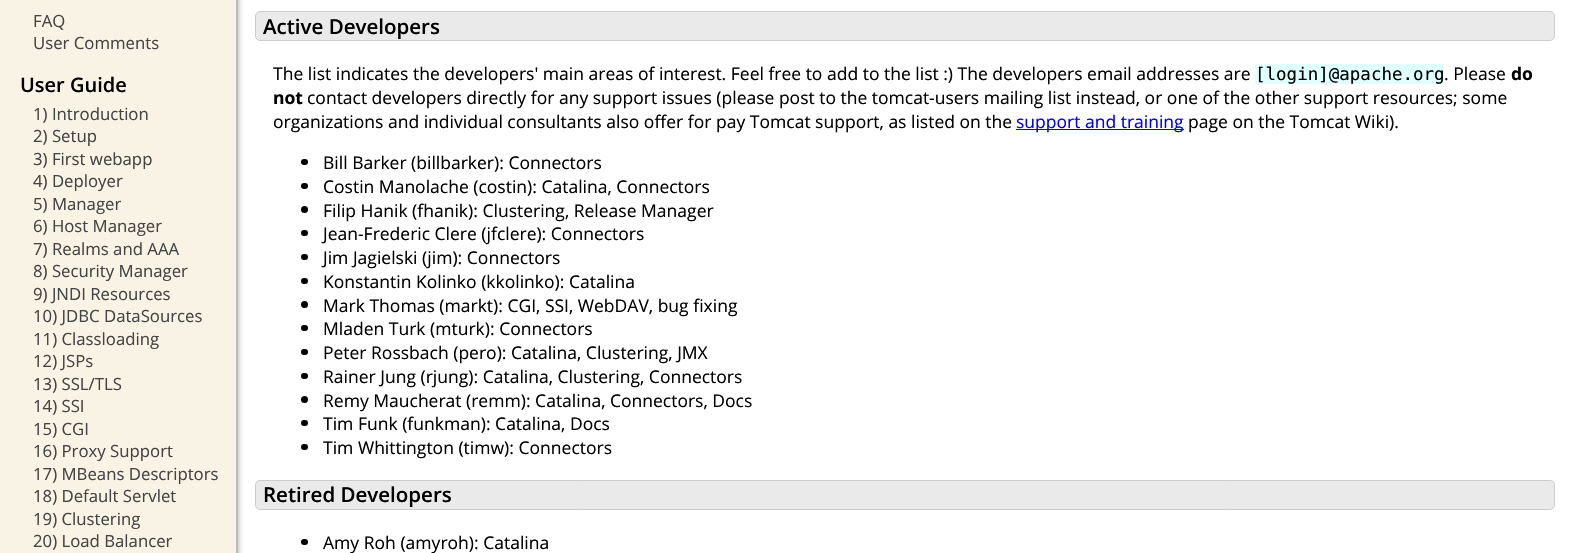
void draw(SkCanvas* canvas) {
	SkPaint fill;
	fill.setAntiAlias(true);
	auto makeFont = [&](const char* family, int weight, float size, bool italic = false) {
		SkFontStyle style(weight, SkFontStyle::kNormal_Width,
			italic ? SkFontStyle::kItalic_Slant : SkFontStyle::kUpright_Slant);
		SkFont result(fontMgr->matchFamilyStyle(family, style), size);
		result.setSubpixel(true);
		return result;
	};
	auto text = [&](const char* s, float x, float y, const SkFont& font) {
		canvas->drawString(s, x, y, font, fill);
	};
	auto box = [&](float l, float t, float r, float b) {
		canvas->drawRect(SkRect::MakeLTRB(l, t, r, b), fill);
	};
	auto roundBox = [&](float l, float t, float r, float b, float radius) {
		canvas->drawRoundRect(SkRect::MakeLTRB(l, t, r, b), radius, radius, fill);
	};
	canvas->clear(0xFFFFFFFF);
	fill.setColor(0xFFAAAAAA);
	fill.setMaskFilter(SkMaskFilter::MakeBlur(kNormal_SkBlurStyle, 3));
	canvas->drawRoundRect(SkRect::MakeLTRB(0, -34, 238, 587), 25, 25, fill);
	fill.setMaskFilter(nullptr);
	fill.setColor(0xFFF8F3E4);
	box(0, 0, 236, 553);
	fill.setColor(0xFFBBBBBB);
	canvas->drawPath(SkPathBuilder(SkPathFillType::kEvenOdd).moveTo(0, -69).lineTo(238, -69).lineTo(238, 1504).cubicTo(238, 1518, 226, 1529, 212, 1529).lineTo(0, 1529).close().moveTo(0, -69).lineTo(236, -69).lineTo(236, 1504).cubicTo(236, 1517, 226, 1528, 212, 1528).lineTo(0, 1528).close().detach(), fill);
	fill.setColor(0xFFEAEAEA);
	canvas->drawRoundRect(SkRect::MakeLTRB(255.5f, 11.5f, 1554.5f, 40.5f), 4.5f, 4.5f, fill);
	fill.setStyle(SkPaint::kStroke_Style);
	fill.setStrokeWidth(1);
	fill.setColor(0xFFCCCCCC);
	canvas->drawRoundRect(SkRect::MakeLTRB(255.5f, 11.5f, 1554.5f, 40.5f), 4.5f, 4.5f, fill);
	fill.setStyle(SkPaint::kFill_Style);
	fill.setColor(0xFFE0FFFF);
	box(1255, 64, 1444, 84);
	fill.setColor(0xFF0000EE);
	box(1016, 129, 1184, 130);
	fill.setColor(0xFF000000);
	roundBox(301, 159, 308, 165, 3);
	roundBox(301, 183, 308, 189, 3);
	canvas->drawCircle(304.5f, 209.5f, 3.5f, fill);
	roundBox(301, 230, 308, 236, 3);
	roundBox(301, 254, 308, 260, 3);
	roundBox(301, 278, 308, 284, 3);
	canvas->drawCircle(304.5f, 304.5f, 3.5f, fill);
	roundBox(301, 325, 308, 331, 3);
	roundBox(301, 349, 308, 355, 3);
	roundBox(301, 373, 308, 379, 3);
	canvas->drawCircle(304.5f, 399.5f, 3.5f, fill);
	roundBox(301, 420, 308, 426, 3);
	roundBox(301, 444, 308, 450, 3);
	fill.setColor(0xFFEAEAEA);
	canvas->drawRoundRect(SkRect::MakeLTRB(255.5f, 480.5f, 1554.5f, 509.5f), 4.5f, 4.5f, fill);
	fill.setStyle(SkPaint::kStroke_Style);
	fill.setColor(0xFFCCCCCC);
	canvas->drawRoundRect(SkRect::MakeLTRB(255.5f, 480.5f, 1554.5f, 509.5f), 4.5f, 4.5f, fill);
	fill.setStyle(SkPaint::kFill_Style);
	fill.setColor(0xFF000000);
	roundBox(301, 539, 308, 545, 3);
	auto font1 = makeFont("Open Sans", 400, 16.75f);
	fill.setColor(0xFF444444);
	text("FAQ", 33, 27, font1);
	text("User Comments", 33, 49, font1);
	auto font2 = makeFont("Open Sans", 600, 20);
	fill.setColor(0xFF000000);
	text("User Guide", 20, 92, font2);
	fill.setColor(0xFF444444);
	text("1) Introduction", 33, 120, font1);
	text("2) Setup", 33, 142, font1);
	text("3) First webapp", 33, 165, font1);
	text("4) Deployer", 33, 187, font1);
	text("5) Manager", 33, 210, font1);
	text("6) Host Manager", 33, 232, font1);
	text("7) Realms and AAA", 33, 255, font1);
	text("8) Security Manager", 33, 277, font1);
	text("9) JNDI Resources", 33, 300, font1);
	text("10) JDBC DataSources", 33, 322, font1);
	text("11) Classloading", 33, 345, font1);
	text("12) JSPs", 33, 367, font1);
	text("13) SSL/TLS", 33, 390, font1);
	text("14) SSI", 33, 412, font1);
	text("15) CGI", 33, 435, font1);
	text("16) Proxy Support", 33, 457, font1);
	text("17) MBeans Descriptors", 33, 480, font1);
	text("18) Default Servlet", 33, 502, font1);
	text("19) Clustering", 33, 525, font1);
	text("20) Load Balancer", 33, 547, font1);
	auto font3 = makeFont("Open Sans", 600, 20.5f);
	fill.setColor(0xFF000000);
	text("Active Developers", 263, 34, font3);
	auto font4 = makeFont("Open Sans", 400, 17.5f);
	text("The list indicates the developers' main areas of interest. Feel free to add to the list :) The developers email addresses are", 273, 80, font4);
	auto font5 = makeFont("DejaVu Sans Mono", 400, 17.5f);
	text("[login]@apache.org", 1255, 80, font5);
	text(". Please", 1444, 80, font4);
	auto font6 = makeFont("Open Sans", 700, 17.5f);
	text("do", 1511, 80, font6);
	text("not", 273, 104, font6);
	text("contact developers directly for any support issues (please post to the tomcat-users mailing list instead, or one of the other support resources; some", 307, 104, font4);
	text("organizations and individual consultants also offer for pay Tomcat support, as listed on the", 273, 128, font4);
	fill.setColor(0xFF0000EE);
	text("support and training", 1016, 128, font4);
	fill.setColor(0xFF000000);
	text("page on the Tomcat Wiki).", 1188, 128, font4);
	text("Bill Barker (billbarker): Connectors", 323, 169, font4);
	text("Costin Manolache (costin): Catalina, Connectors", 323, 193, font4);
	text("Filip Hanik (fhanik): Clustering, Release Manager", 323, 217, font4);
	text("Jean-Frederic Clere (jfclere): Connectors", 323, 240, font4);
	text("Jim Jagielski (jim): Connectors", 323, 264, font4);
	text("Konstantin Kolinko (kkolinko): Catalina", 323, 288, font4);
	text("Mark Thomas (markt): CGI, SSI, WebDAV, bug fixing", 323, 312, font4);
	text("Mladen Turk (mturk): Connectors", 323, 335, font4);
	text("Peter Rossbach (pero): Catalina, Clustering, JMX", 323, 359, font4);
	text("Rainer Jung (rjung): Catalina, Clustering, Connectors", 323, 383, font4);
	text("Remy Maucherat (remm): Catalina, Connectors, Docs", 323, 407, font4);
	text("Tim Funk (funkman): Catalina, Docs", 323, 430, font4);
	text("Tim Whittington (timw): Connectors", 323, 454, font4);
	text("Retired Developers", 263, 502, font3);
	text("Amy Roh (amyroh): Catalina", 323, 549, font4);
}
